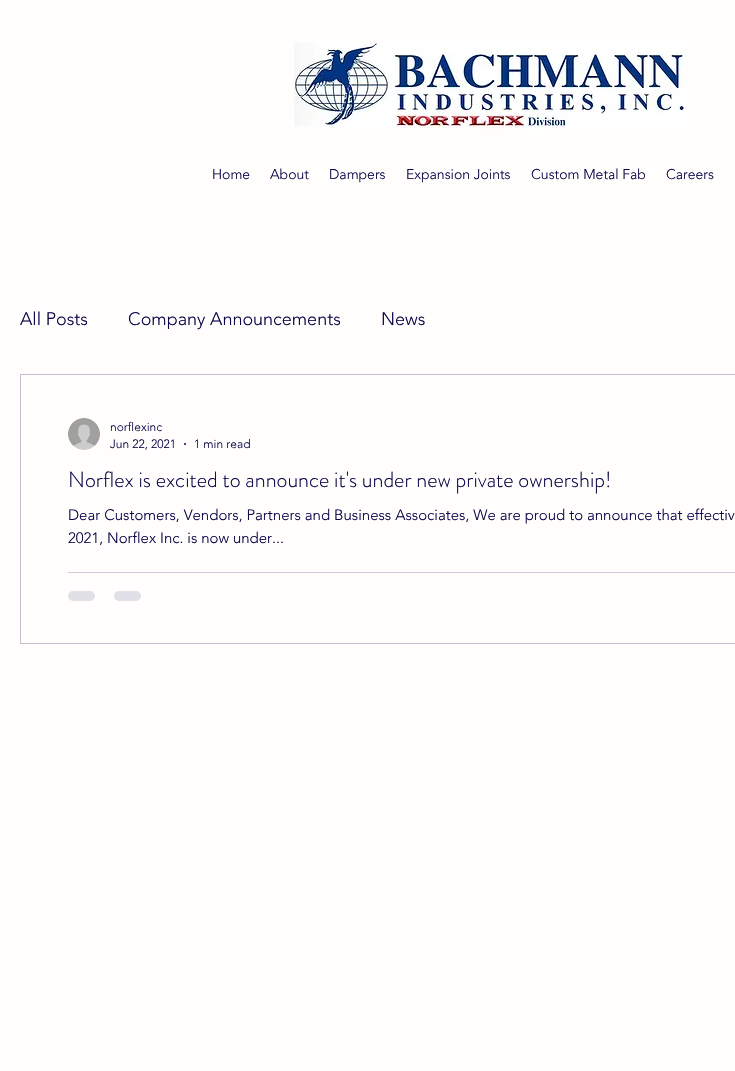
void draw(SkCanvas* canvas) {
	SkPaint fill;
	fill.setAntiAlias(true);
	auto makeFont = [&](const char* family, int weight, float size, bool italic = false) {
		SkFontStyle style(weight, SkFontStyle::kNormal_Width,
			italic ? SkFontStyle::kItalic_Slant : SkFontStyle::kUpright_Slant);
		SkFont result(fontMgr->matchFamilyStyle(family, style), size);
		result.setSubpixel(true);
		return result;
	};
	auto text = [&](const char* s, float x, float y, const SkFont& font) {
		canvas->drawString(s, x, y, font, fill);
	};
	auto box = [&](float l, float t, float r, float b) {
		canvas->drawRect(SkRect::MakeLTRB(l, t, r, b), fill);
	};
	auto roundBox = [&](float l, float t, float r, float b, float radius) {
		canvas->drawRoundRect(SkRect::MakeLTRB(l, t, r, b), radius, radius, fill);
	};
	auto picture = [&](const char* path, float l, float t, float r, float b) {
		auto image = SkImages::DeferredFromEncodedData(SkData::MakeFromFileName(path));
		canvas->drawImageRect(image, SkRect::MakeLTRB(l, t, r, b), SkSamplingOptions());
	};
	canvas->clear(0xFFFFFEFC);
	picture("image0.png", 294, 41, 685, 129);
	fill.setStyle(SkPaint::kStroke_Style);
	fill.setStrokeWidth(1);
	fill.setColor(0xFFC2C0CF);
	canvas->drawRect(SkRect::MakeLTRB(20.5f, 374.5f, 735.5f, 643.5f), fill);
	picture("image1.png", 68, 418, 100, 450);
	fill.setStyle(SkPaint::kFill_Style);
	fill.setColor(0xFF0B0649);
	canvas->drawCircle(185, 444, 1, fill);
	fill.setColor(0xFFCECCD8);
	box(68, 572, 735, 573);
	fill.setColor(0xFFE2E0E7);
	roundBox(68, 591, 95, 601, 5);
	roundBox(114, 591, 141, 601, 5);
	auto font1 = makeFont("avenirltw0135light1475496", 300, 14);
	fill.setColor(0xFF0B0649);
	text("Home", 212, 179, font1);
	text("About", 270, 179, font1);
	text("Dampers", 329, 179, font1);
	text("Expansion Joints", 406, 179, font1);
	text("Custom Metal Fab", 531, 179, font1);
	text("Careers", 666, 179, font1);
	auto font2 = makeFont("avenirltw0135light1475496", 300, 18);
	text("All Posts", 20, 325, font2);
	text("Company Announcements", 128, 325, font2);
	text("News", 381, 325, font2);
	auto font3 = makeFont("avenirltw0135light1475496", 300, 12);
	text("norflexinc", 110, 431, font3);
	text("Jun 22, 2021", 110, 448, font3);
	text("1 min read", 194, 448, font3);
	auto font4 = makeFont("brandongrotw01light", 300, 22);
	text("Norflex is excited to announce it's under new private ownership!", 68, 487, font4);
	auto font5 = makeFont("avenirltw0135light1475496", 300, 15);
	text("Dear Customers, Vendors, Partners and Business Associates, We are proud to announce that effectiv", 68, 520, font5);
	text("2021, Norflex Inc. is now under...", 68, 543, font5);
}
